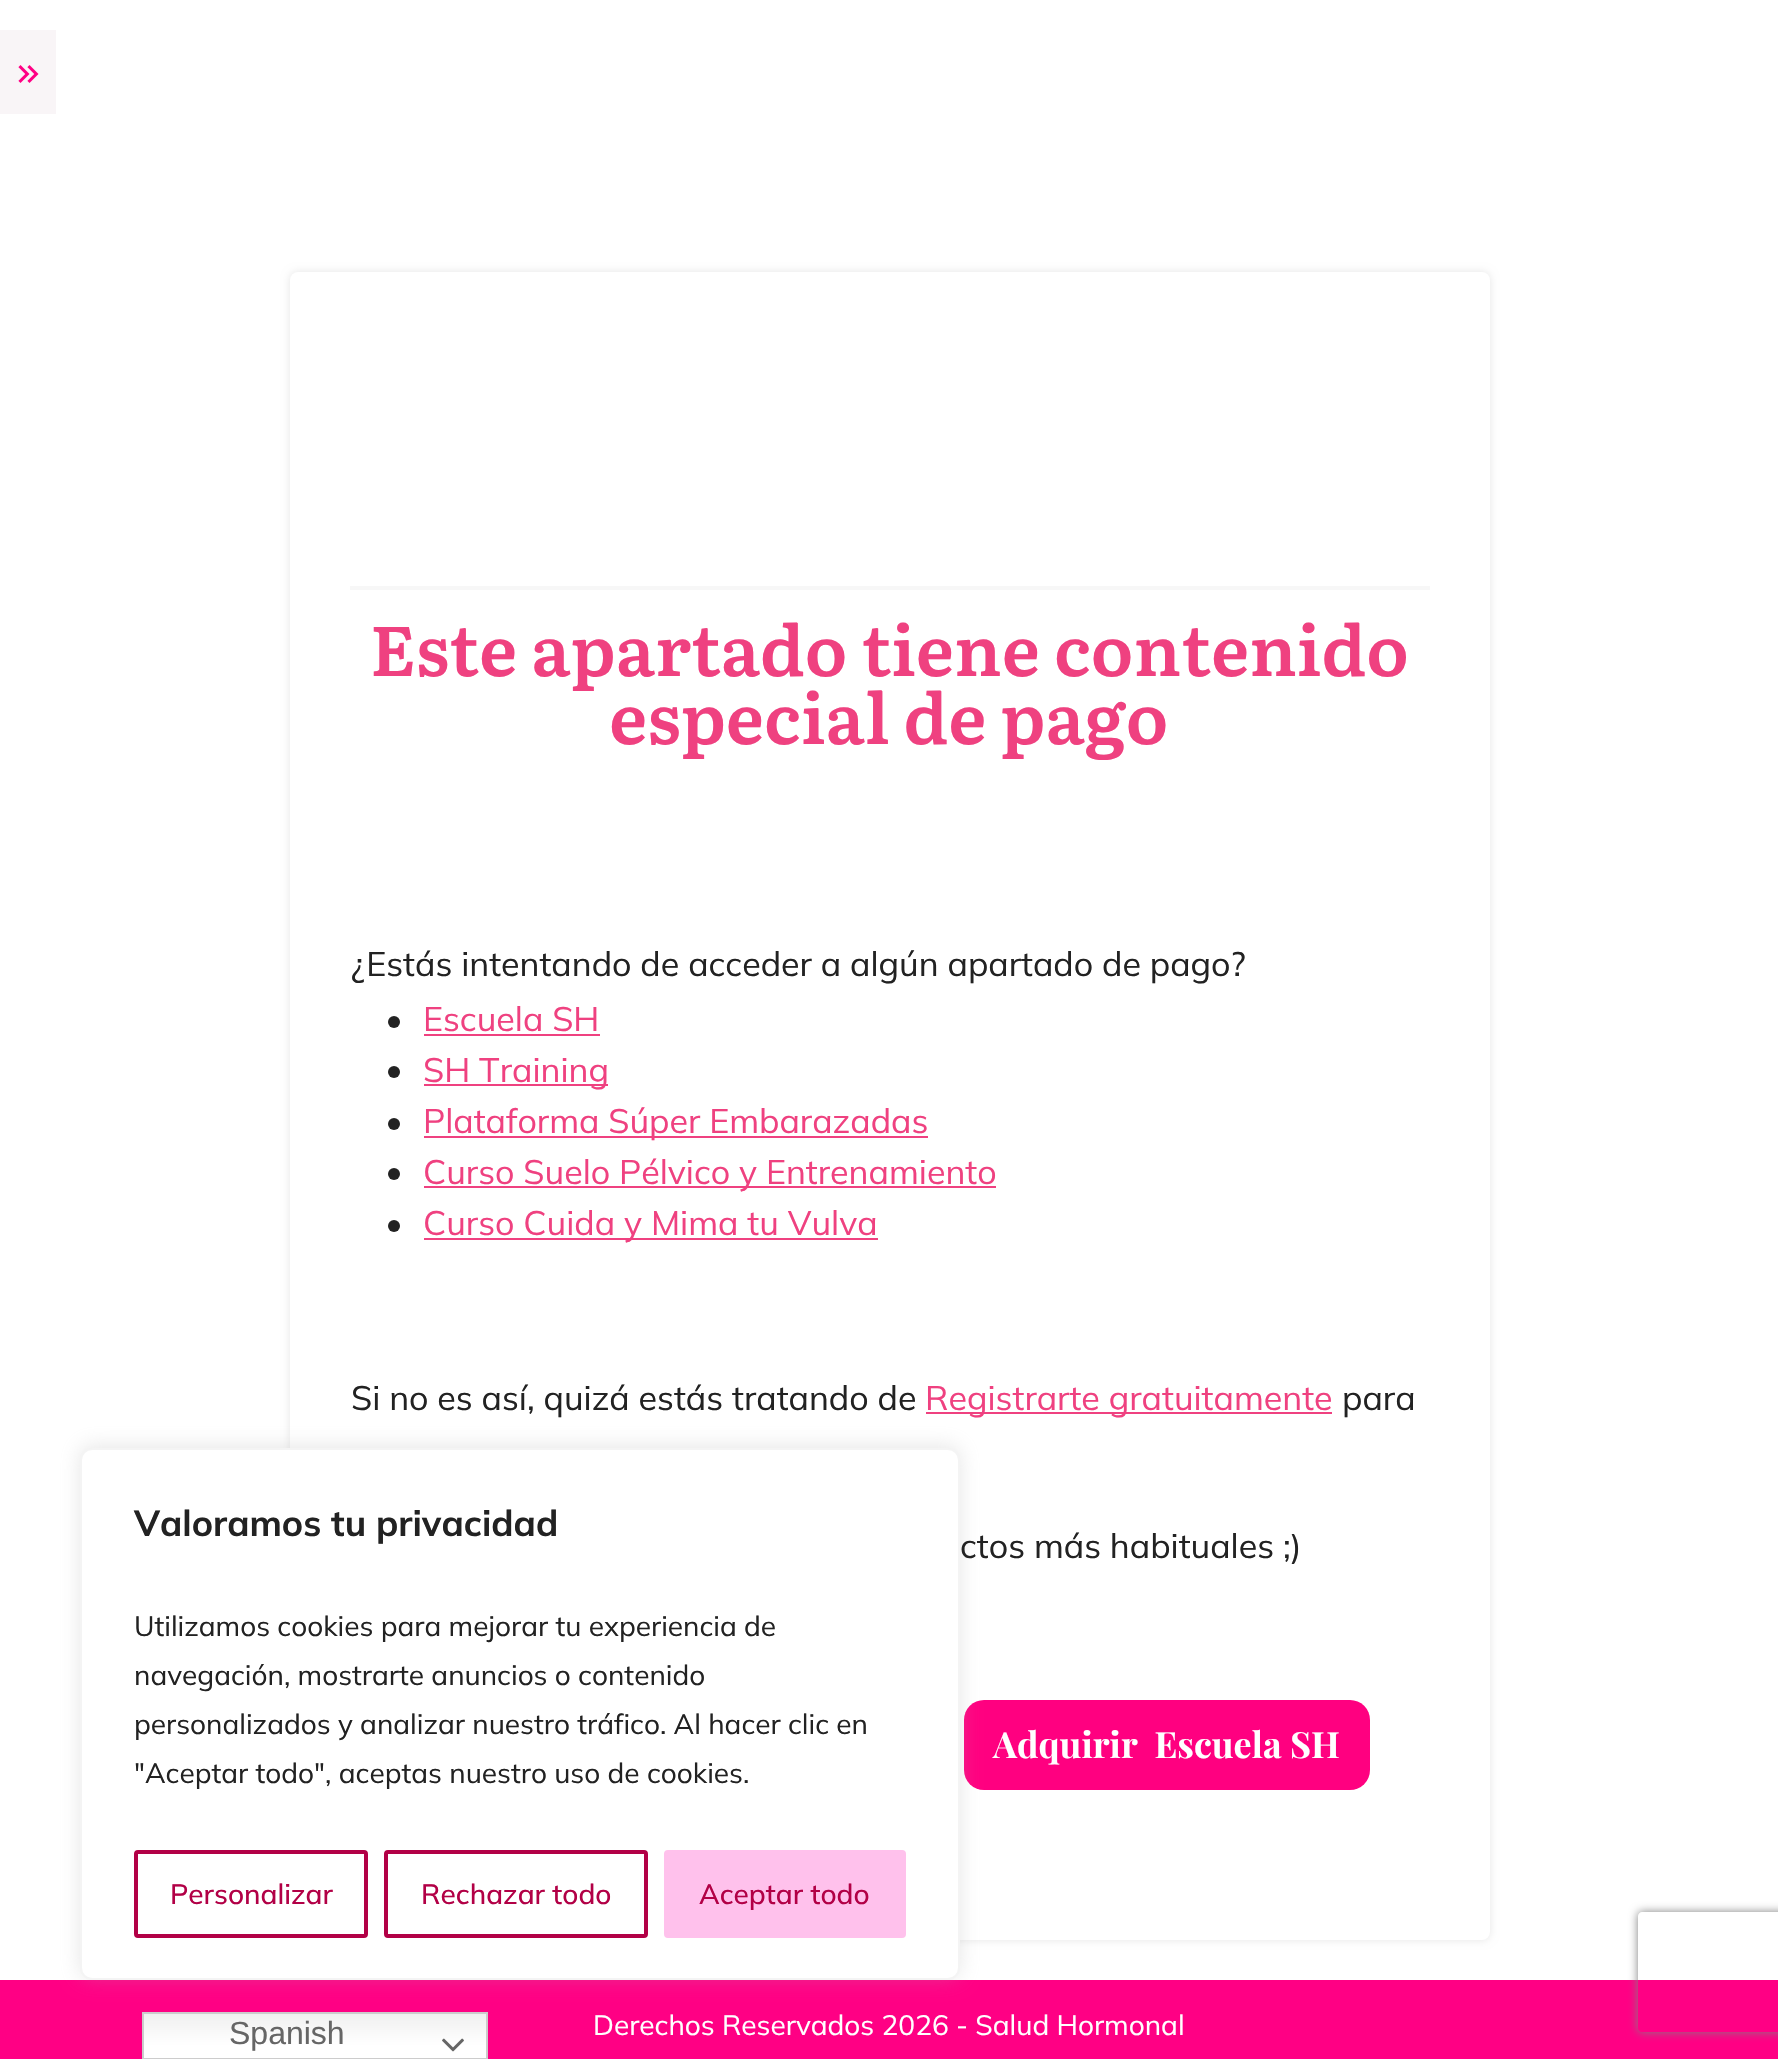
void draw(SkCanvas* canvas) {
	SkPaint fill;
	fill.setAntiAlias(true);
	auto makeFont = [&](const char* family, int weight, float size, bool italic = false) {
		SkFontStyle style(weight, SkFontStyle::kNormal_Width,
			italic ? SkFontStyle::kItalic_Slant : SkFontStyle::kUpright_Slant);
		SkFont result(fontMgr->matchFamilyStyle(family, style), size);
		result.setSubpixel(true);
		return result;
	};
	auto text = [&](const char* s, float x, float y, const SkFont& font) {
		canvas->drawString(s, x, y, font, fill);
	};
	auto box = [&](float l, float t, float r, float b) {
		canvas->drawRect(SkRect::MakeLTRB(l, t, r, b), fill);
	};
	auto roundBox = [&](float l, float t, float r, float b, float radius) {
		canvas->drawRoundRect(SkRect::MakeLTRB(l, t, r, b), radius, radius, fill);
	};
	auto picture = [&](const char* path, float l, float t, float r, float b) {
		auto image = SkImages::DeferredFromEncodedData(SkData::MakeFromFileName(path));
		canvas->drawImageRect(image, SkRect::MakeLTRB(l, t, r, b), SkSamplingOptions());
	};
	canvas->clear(0xFFFFFFFF);
	fill.setColor(0xFFF9F5F7);
	box(0, 30, 56, 114);
	picture("image0.png", 18, 65, 39, 83);
	fill.setColor(0x1A000000);
	fill.setMaskFilter(SkMaskFilter::MakeBlur(kNormal_SkBlurStyle, 4));
	canvas->drawRoundRect(SkRect::MakeLTRB(290, 272, 1490, 1940), 8, 8, fill);
	fill.setMaskFilter(nullptr);
	fill.setColor(0xFFFFFFFF);
	roundBox(290, 272, 1490, 1940, 8);
	fill.setColor(0xFFF7F7F7);
	box(350, 586, 1430, 590);
	fill.setColor(0xFF222222);
	canvas->drawCircle(394, 1022, 6, fill);
	fill.setColor(0xFFEF4180);
	box(424, 1034, 600, 1036);
	fill.setColor(0xFF222222);
	canvas->drawCircle(394, 1072, 6, fill);
	fill.setColor(0xFFEF4180);
	box(424, 1084, 608, 1086);
	fill.setColor(0xFF222222);
	canvas->drawCircle(394, 1124, 6, fill);
	fill.setColor(0xFFEF4180);
	box(424, 1136, 928, 1138);
	fill.setColor(0xFF222222);
	canvas->drawCircle(394, 1174, 6, fill);
	fill.setColor(0xFFEF4180);
	box(424, 1186, 996, 1188);
	fill.setColor(0xFF222222);
	canvas->drawCircle(394, 1226, 6, fill);
	fill.setColor(0xFFEF4180);
	box(424, 1238, 878, 1240);
	box(926, 1412, 1332, 1414);
	fill.setColor(0xFFFF0080);
	roundBox(964, 1700, 1370, 1790, 20);
	fill.setColor(0xFFFF0084);
	box(0, 1980, 1778, 2059);
	fill.setColor(0x4DACABAB);
	fill.setMaskFilter(SkMaskFilter::MakeBlur(kNormal_SkBlurStyle, 10));
	canvas->drawRoundRect(SkRect::MakeLTRB(80, 1446, 960, 1978), 12, 12, fill);
	fill.setMaskFilter(nullptr);
	fill.setColor(0xFFFFFFFF);
	canvas->drawRoundRect(SkRect::MakeLTRB(81, 1449, 959, 1979), 11, 11, fill);
	fill.setStyle(SkPaint::kStroke_Style);
	fill.setStrokeWidth(2);
	fill.setColor(0xFFF4F4F4);
	canvas->drawRoundRect(SkRect::MakeLTRB(81, 1449, 959, 1979), 11, 11, fill);
	fill.setStrokeWidth(4);
	fill.setColor(0xFFB20046);
	canvas->drawRoundRect(SkRect::MakeLTRB(136, 1852, 366, 1936), 2, 2, fill);
	canvas->drawRoundRect(SkRect::MakeLTRB(386, 1852, 646, 1936), 2, 2, fill);
	fill.setStyle(SkPaint::kFill_Style);
	fill.setColor(0xFFFFC1EC);
	canvas->drawRoundRect(SkRect::MakeLTRB(666, 1852, 904, 1936), 2, 2, fill);
	fill.setStyle(SkPaint::kStroke_Style);
	canvas->drawRoundRect(SkRect::MakeLTRB(666, 1852, 904, 1936), 2, 2, fill);
	fill.setStyle(SkPaint::kFill_Style);
	{
		const SkColor colors[] = {0xFFEFEFEF, 0xFFFFFFFF};
		const float stops[] = {0, 0.7f};
		const SkPoint ends[] = {{315, 2012}, {315, 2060}};
		fill.setShader(SkGradientShader::MakeLinear(ends, colors, stops, 2, SkTileMode::kClamp));
		fill.setAlpha(255);
	}
	box(144, 2014, 486, 2058);
	fill.setStyle(SkPaint::kStroke_Style);
	fill.setStrokeWidth(2);
	fill.setShader(nullptr);
	fill.setColor(0xFFCCCCCC);
	canvas->drawRect(SkRect::MakeLTRB(143, 2013, 487, 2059), fill);
	picture("image1.png", 442, 2038, 464, 2052);
	canvas->save();
	canvas->clipPath(SkPathBuilder(SkPathFillType::kEvenOdd).moveTo(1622, 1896).lineTo(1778, 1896).lineTo(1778, 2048).lineTo(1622, 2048).close().moveTo(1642, 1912).lineTo(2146, 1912).cubicTo(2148, 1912, 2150, 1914, 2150, 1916).lineTo(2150, 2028).cubicTo(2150, 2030, 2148, 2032, 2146, 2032).lineTo(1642, 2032).cubicTo(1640, 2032, 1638, 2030, 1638, 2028).lineTo(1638, 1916).cubicTo(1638, 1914, 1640, 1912, 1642, 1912).close().detach(), true);
	fill.setStyle(SkPaint::kFill_Style);
	fill.setColor(0xFF808080);
	fill.setMaskFilter(SkMaskFilter::MakeBlur(kNormal_SkBlurStyle, 5));
	canvas->drawRoundRect(SkRect::MakeLTRB(1638, 1912, 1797, 2032), 4, 4, fill);
	fill.setMaskFilter(nullptr);
	canvas->restore();
	auto font1 = makeFont("Literata", 600, 70);
	fill.setColor(0xFFEF4180);
	text("Este apartado tiene contenido", 370, 676, font1);
	text("especial de pago", 609, 744, font1);
	auto font2 = makeFont("Mulish", 400, 34);
	fill.setColor(0xFF222222);
	text("¿Estás intentando de acceder a algún apartado de pago?", 351, 976, font2);
	fill.setColor(0xFFEF4180);
	text("Escuela SH", 423, 1031, font2);
	text("SH Training", 423, 1082, font2);
	text("Plataforma Súper Embarazadas", 423, 1133, font2);
	text("Curso Suelo Pélvico y Entrenamiento", 423, 1184, font2);
	text("Curso Cuida y Mima tu Vulva", 423, 1235, font2);
	fill.setColor(0xFF222222);
	text("Si no es así, quizá estás tratando de", 351, 1410, font2);
	fill.setColor(0xFFEF4180);
	text("Registrarte gratuitamente", 925, 1410, font2);
	fill.setColor(0xFF222222);
	text("para", 1342, 1410, font2);
	text("ctos más habituales ;)", 960, 1558, font2);
	auto font3 = makeFont("Playfair Display", 700, 36);
	fill.setColor(0xFFFFFFFF);
	text("Adquirir  Escuela SH", 993, 1758, font3);
	auto font4 = makeFont("Mulish", 400, 28);
	text("Derechos Reservados 2026 - Salud Hormonal", 593, 2035, font4);
	auto font5 = makeFont("Mulish", 700, 36);
	fill.setColor(0xFF222222);
	text("Valoramos tu privacidad", 134, 1536, font5);
	text("Utilizamos cookies para mejorar tu experiencia de", 134, 1636, font4);
	text("navegación, mostrarte anuncios o contenido", 134, 1685, font4);
	text("personalizados y analizar nuestro tráfico. Al hacer clic en", 134, 1734, font4);
	text("\"Aceptar todo\", aceptas nuestro uso de cookies.", 134, 1783, font4);
	auto font6 = makeFont("Mulish", 500, 28);
	fill.setColor(0xFFB20046);
	text("Personalizar", 170, 1904, font6);
	text("Rechazar todo", 421, 1904, font6);
	text("Aceptar todo", 699, 1904, font6);
	auto font7 = makeFont("Liberation Sans", 400, 32);
	fill.setColor(0xFF666666);
	text("Spanish", 229, 2044, font7);
}
